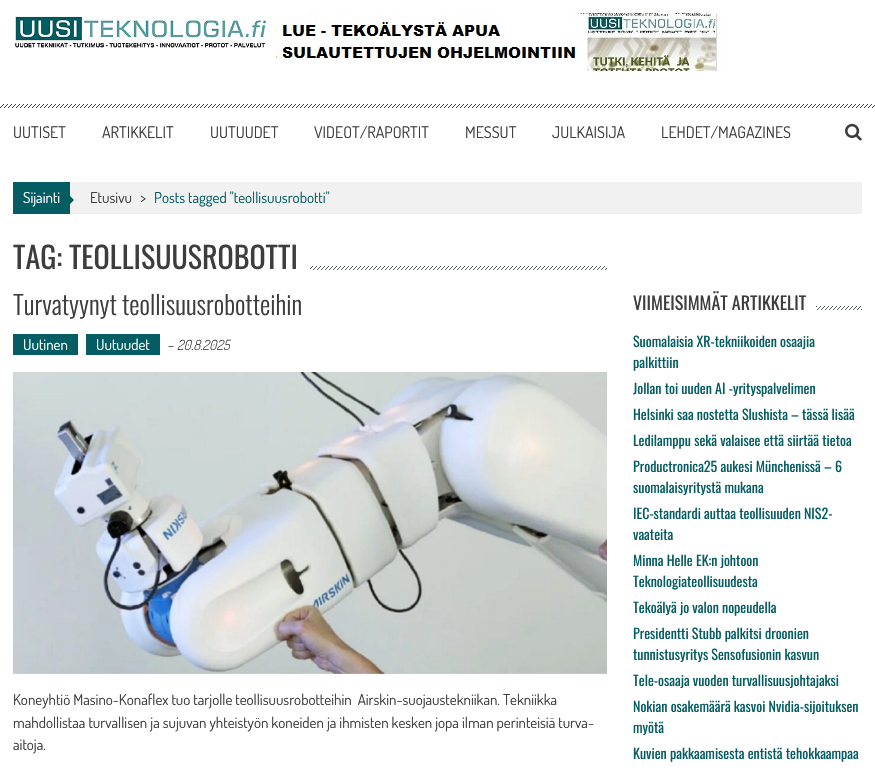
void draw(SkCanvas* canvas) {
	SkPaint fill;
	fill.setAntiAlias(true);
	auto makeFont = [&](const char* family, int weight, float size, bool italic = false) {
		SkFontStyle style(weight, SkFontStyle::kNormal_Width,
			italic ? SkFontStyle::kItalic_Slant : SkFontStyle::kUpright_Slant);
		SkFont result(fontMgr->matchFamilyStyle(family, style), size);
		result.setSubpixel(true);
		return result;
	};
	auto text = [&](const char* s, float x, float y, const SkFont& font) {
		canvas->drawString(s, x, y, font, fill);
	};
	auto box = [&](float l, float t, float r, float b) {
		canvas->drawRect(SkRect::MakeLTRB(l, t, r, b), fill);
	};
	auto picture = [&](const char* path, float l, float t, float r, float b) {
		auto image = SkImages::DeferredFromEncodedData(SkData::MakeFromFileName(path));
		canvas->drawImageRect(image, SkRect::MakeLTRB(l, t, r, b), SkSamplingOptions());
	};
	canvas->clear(0xFFFFFFFF);
	picture("image0.png", 0, 104, 875, 108);
	picture("image1.png", 14, 16, 267, 48);
	picture("image2.png", 276, 12, 723, 72);
	picture("image3.png", 845, 123, 862, 141);
	fill.setColor(0xFFF1F1F1);
	box(70, 182, 862, 214);
	fill.setColor(0xFF035D62);
	box(13, 182, 70, 214);
	fill.setColor(0xFF035D52);
	canvas->drawPath(SkPathBuilder().moveTo(69, 205).lineTo(69, 195).lineTo(74, 200).close().detach(), fill);
	picture("image4.png", 310, 266, 607, 270);
	fill.setColor(0xFF035D62);
	box(13, 334, 78, 355);
	box(86, 334, 160, 355);
	picture("image5.png", 13, 372, 607, 674);
	picture("image6.png", 816, 306, 862, 310);
	auto font1 = makeFont("Dosis", 400, 16);
	fill.setColor(0xFF3D3D3D);
	text("UUTISET", 13, 138, font1);
	text("ARTIKKELIT", 102, 138, font1);
	text("UUTUUDET", 210, 138, font1);
	text("VIDEOT/RAPORTIT", 314, 138, font1);
	text("MESSUT", 465, 138, font1);
	text("JULKAISIJA", 552, 138, font1);
	text("LEHDET/MAGAZINES", 661, 138, font1);
	auto font2 = makeFont("Dosis", 400, 15);
	fill.setColor(0xFFFFFFFF);
	text("Sijainti", 23, 203, font2);
	fill.setColor(0xFF3D3D3D);
	text("Etusivu", 90, 203, font2);
	text(">", 140, 203, font2);
	fill.setColor(0xFF035D62);
	text("Posts tagged \"teollisuusrobotti\"", 154, 203, font2);
	auto font3 = makeFont("Oswald", 400, 30);
	fill.setColor(0xFF3D3D3D);
	text("TAG: TEOLLISUUSROBOTTI", 13, 269, font3);
	auto font4 = makeFont("Oswald", 300, 26);
	text("Turvatyynyt teollisuusrobotteihin", 13, 315, font4);
	fill.setColor(0xFFFFFFFF);
	text("Uutinen", 23, 350, font2);
	text("Uutuudet", 96, 350, font2);
	fill.setColor(0xFF3D3D3D);
	text("-", 168, 350, font2);
	auto font5 = makeFont("Dosis", 300, 14, true);
	text("20.8.2025", 177, 350, font5);
	text("Koneyhtiö Masino-Konaflex tuo tarjolle teollisuusrobotteihin  Airskin-suojaustekniikan. Tekniikka", 13, 705, font2);
	text("mahdollistaa turvallisen ja sujuvan yhteistyön koneiden ja ihmisten kesken jopa ilman perinteisiä turva-", 13, 728, font2);
	text("aitoja.", 13, 750, font2);
	auto font6 = makeFont("Oswald", 400, 18);
	text("VIIMEISIMMÄT ARTIKKELIT", 633, 310, font6);
	auto font7 = makeFont("Oswald", 400, 14);
	fill.setColor(0xFF035D62);
	text("Suomalaisia XR-tekniikoiden osaajia", 633, 347, font7);
	text("palkittiin", 633, 368, font7);
	text("Jollan toi uuden AI -yrityspalvelimen", 633, 394, font7);
	text("Helsinki saa nostetta Slushista – tässä lisää", 633, 420, font7);
	text("Ledilamppu sekä valaisee että siirtää tietoa", 633, 446, font7);
	text("Productronica25 aukesi Münchenissä – 6", 633, 472, font7);
	text("suomalaisyritystä mukana", 633, 493, font7);
	text("IEC-standardi auttaa teollisuuden NIS2-", 633, 519, font7);
	text("vaateita", 633, 540, font7);
	text("Minna Helle EK:n johtoon", 633, 566, font7);
	text("Teknologiateollisuudesta", 633, 587, font7);
	text("Tekoälyä jo valon nopeudella", 633, 613, font7);
	text("Presidentti Stubb palkitsi droonien", 633, 639, font7);
	text("tunnistusyritys Sensofusionin kasvun", 633, 660, font7);
	text("Tele-osaaja vuoden turvallisuusjohtajaksi", 633, 686, font7);
	text("Nokian osakemäärä kasvoi Nvidia-sijoituksen", 633, 712, font7);
	text("myötä", 633, 733, font7);
	text("Kuvien pakkaamisesta entistä tehokkaampaa", 633, 759, font7);
}
